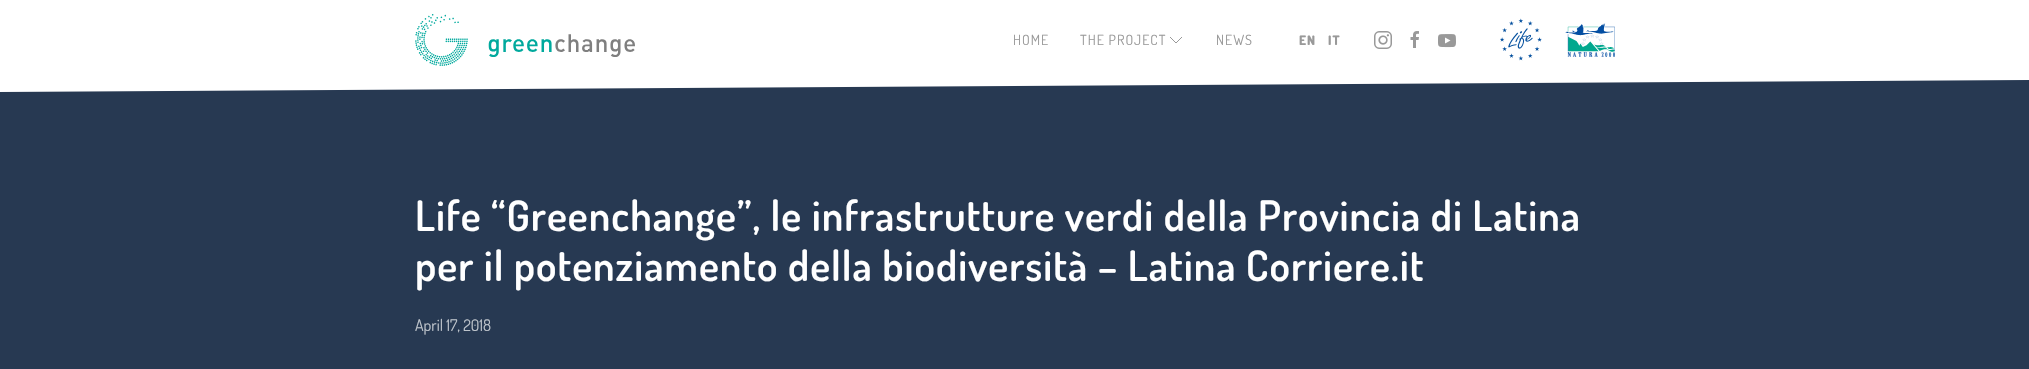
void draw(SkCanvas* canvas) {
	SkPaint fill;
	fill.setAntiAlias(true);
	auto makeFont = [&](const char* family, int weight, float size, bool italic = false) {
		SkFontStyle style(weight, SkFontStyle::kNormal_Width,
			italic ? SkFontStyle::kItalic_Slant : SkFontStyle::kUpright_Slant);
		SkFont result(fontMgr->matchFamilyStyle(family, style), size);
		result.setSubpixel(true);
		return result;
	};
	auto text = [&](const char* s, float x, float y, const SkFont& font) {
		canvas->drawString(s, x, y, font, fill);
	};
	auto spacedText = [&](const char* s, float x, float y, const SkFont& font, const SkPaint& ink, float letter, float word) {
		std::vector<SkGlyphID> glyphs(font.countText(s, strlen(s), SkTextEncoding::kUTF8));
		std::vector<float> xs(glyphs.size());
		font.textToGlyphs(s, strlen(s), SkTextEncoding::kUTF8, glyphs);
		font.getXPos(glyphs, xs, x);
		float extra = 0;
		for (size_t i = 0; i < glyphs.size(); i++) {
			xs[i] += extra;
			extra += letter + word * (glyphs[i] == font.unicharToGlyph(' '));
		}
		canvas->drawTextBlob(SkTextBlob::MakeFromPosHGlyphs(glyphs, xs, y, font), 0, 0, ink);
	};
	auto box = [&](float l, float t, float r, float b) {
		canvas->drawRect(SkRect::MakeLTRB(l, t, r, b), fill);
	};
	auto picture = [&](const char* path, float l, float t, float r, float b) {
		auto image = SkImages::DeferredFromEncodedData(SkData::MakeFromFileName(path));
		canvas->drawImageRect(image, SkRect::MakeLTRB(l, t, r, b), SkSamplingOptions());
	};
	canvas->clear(0xFF273952);
	fill.setColor(0xFFFFFFFF);
	box(0, 0, 2029, 80);
	picture("image0.png", 415, 14, 635, 66);
	fill.setStyle(SkPaint::kStroke_Style);
	fill.setStrokeWidth(1);
	fill.setColor(0xFF999999);
	canvas->drawPath(SkPathBuilder().moveTo(1182, 37).lineTo(1176, 43).lineTo(1170, 37).detach(), fill);
	picture("image1.png", 1374, 31, 1392, 49);
	picture("image2.png", 1410, 31, 1419, 48);
	picture("image3.png", 1438, 34, 1456, 48);
	picture("image4.png", 1500, 18, 1542, 61);
	picture("image5.png", 1565, 23, 1615, 57);
	fill.setStyle(SkPaint::kFill_Style);
	fill.setColor(0xFFFFFFFF);
	canvas->drawPath(SkPathBuilder().moveTo(0, 92).lineTo(0, 80).lineTo(2029, 80).close().detach(), fill);
	auto font1 = makeFont("Dosis", 400, 14);
	fill.setColor(0xFF999999);
	spacedText("HOME", 1013, 45, font1, fill, 1, 0);
	spacedText("THE PROJECT", 1080, 45, font1, fill, 1, 0);
	spacedText("NEWS", 1216, 45, font1, fill, 1, 0);
	auto font2 = makeFont("Dosis", 800, 13);
	spacedText("EN", 1299, 45, font2, fill, 1, 0);
	spacedText("IT", 1328, 45, font2, fill, 1, 0);
	auto font3 = makeFont("Dosis", 600, 42);
	fill.setColor(0xFFFFFFFF);
	spacedText("Life “Greenchange”, le infrastrutture verdi della Provincia di Latina", 415, 231, font3, fill, 1, 0);
	spacedText("per il potenziamento della biodiversità – Latina Corriere.it", 415, 281, font3, fill, 1, 0);
	auto font4 = makeFont("Dosis", 400, 16);
	fill.setColor(0xFFBEC4CB);
	text("April 17, 2018", 415, 331, font4);
}
